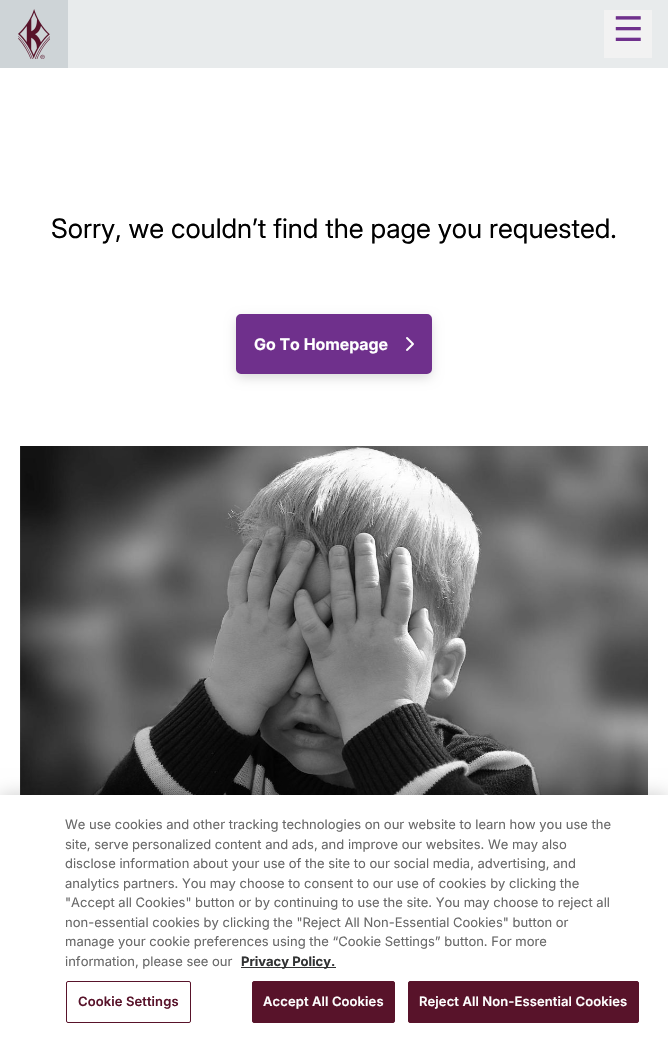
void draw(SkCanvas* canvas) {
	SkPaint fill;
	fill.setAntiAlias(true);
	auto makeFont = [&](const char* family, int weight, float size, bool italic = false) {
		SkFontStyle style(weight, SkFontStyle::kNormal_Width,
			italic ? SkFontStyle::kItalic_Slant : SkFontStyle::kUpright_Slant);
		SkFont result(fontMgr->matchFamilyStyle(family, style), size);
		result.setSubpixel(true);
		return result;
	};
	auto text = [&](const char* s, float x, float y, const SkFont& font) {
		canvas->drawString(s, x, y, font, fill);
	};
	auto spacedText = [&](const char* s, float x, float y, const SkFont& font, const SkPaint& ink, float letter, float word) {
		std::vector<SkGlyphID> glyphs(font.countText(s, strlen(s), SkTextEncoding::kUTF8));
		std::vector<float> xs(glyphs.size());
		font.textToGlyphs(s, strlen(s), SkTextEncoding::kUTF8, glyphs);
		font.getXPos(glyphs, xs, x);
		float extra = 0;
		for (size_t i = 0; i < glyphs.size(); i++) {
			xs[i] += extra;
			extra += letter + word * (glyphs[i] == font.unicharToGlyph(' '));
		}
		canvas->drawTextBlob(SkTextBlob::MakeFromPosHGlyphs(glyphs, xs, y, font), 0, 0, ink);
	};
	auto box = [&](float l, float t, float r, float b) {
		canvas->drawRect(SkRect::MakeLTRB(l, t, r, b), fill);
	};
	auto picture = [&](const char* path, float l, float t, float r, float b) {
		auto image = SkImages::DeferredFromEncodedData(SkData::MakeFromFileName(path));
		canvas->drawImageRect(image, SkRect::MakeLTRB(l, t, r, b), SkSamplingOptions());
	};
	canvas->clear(0xFFFFFFFF);
	fill.setColor(0xFFE8EBEC);
	box(68, 0, 668, 68);
	fill.setColor(0xFFCED4D7);
	box(0, 0, 68, 68);
	picture("image0.png", 18, 9, 50, 59);
	fill.setColor(0xFFF2F2F2);
	box(604, 10, 652, 58);
	fill.setColor(0x29000000);
	fill.setMaskFilter(SkMaskFilter::MakeBlur(kNormal_SkBlurStyle, 6));
	canvas->drawRoundRect(SkRect::MakeLTRB(237, 319, 431, 377), 4, 4, fill);
	fill.setMaskFilter(nullptr);
	fill.setColor(0xFF6F308C);
	canvas->drawRoundRect(SkRect::MakeLTRB(237, 315, 431, 373), 4, 4, fill);
	fill.setStyle(SkPaint::kStroke_Style);
	fill.setStrokeWidth(2);
	canvas->drawRoundRect(SkRect::MakeLTRB(237, 315, 431, 373), 4, 4, fill);
	picture("image1.png", 406, 337, 414, 351);
	picture("image2.png", 20, 446, 648, 795);
	fill.setStyle(SkPaint::kFill_Style);
	fill.setColor(0x33000000);
	fill.setMaskFilter(SkMaskFilter::MakeBlur(kNormal_SkBlurStyle, 9));
	canvas->drawRect(SkRect::MakeLTRB(0, 795, 668, 1043), fill);
	fill.setMaskFilter(nullptr);
	fill.setColor(0xFFFFFFFF);
	box(0, 795, 668, 1043);
	fill.setColor(0xFF323334);
	box(241, 967, 336, 968);
	fill.setStyle(SkPaint::kStroke_Style);
	fill.setStrokeWidth(1);
	fill.setColor(0xFF58132A);
	canvas->drawRoundRect(SkRect::MakeLTRB(66.5f, 981.5f, 190.5f, 1022.5f), 1.5f, 1.5f, fill);
	fill.setStyle(SkPaint::kFill_Style);
	canvas->drawRoundRect(SkRect::MakeLTRB(252.5f, 981.5f, 394.5f, 1022.5f), 1.5f, 1.5f, fill);
	fill.setStyle(SkPaint::kStroke_Style);
	canvas->drawRoundRect(SkRect::MakeLTRB(252.5f, 981.5f, 394.5f, 1022.5f), 1.5f, 1.5f, fill);
	fill.setStyle(SkPaint::kFill_Style);
	canvas->drawRoundRect(SkRect::MakeLTRB(408.5f, 981.5f, 638.5f, 1022.5f), 1.5f, 1.5f, fill);
	fill.setStyle(SkPaint::kStroke_Style);
	canvas->drawRoundRect(SkRect::MakeLTRB(408.5f, 981.5f, 638.5f, 1022.5f), 1.5f, 1.5f, fill);
	auto font1 = makeFont("DejaVu Sans", 400, 34);
	fill.setStyle(SkPaint::kFill_Style);
	fill.setColor(0xFF6F308C);
	text("☰", 613, 41, font1);
	auto font2 = makeFont("Inter", 400, 26.9f);
	fill.setColor(0xFF000000);
	text("Sorry, we couldn’t find the page you requested.", 51, 238, font2);
	auto font3 = makeFont("Inter", 700, 16);
	fill.setColor(0xFFFFFFFF);
	text("Go To Homepage", 254, 350, font3);
	auto font4 = makeFont("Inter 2", 400, 13);
	fill.setColor(0xFF696969);
	text("We use cookies and other tracking technologies on our website to learn how you use the", 65, 829, font4);
	text("site, serve personalized content and ads, and improve our websites. We may also", 65, 849, font4);
	text("disclose information about your use of the site to our social media, advertising, and", 65, 868, font4);
	text("analytics partners. You may choose to consent to our use of cookies by clicking the", 65, 888, font4);
	text("\"Accept all Cookies\" button or by continuing to use the site. You may choose to reject all", 65, 907, font4);
	text("non-essential cookies by clicking the \"Reject All Non-Essential Cookies\" button or", 65, 927, font4);
	text("manage your cookie preferences using the “Cookie Settings” button. For more", 65, 946, font4);
	text("information, please see our", 65, 966, font4);
	auto font5 = makeFont("Inter 2", 700, 13);
	fill.setColor(0xFF323334);
	text("Privacy Policy.", 241, 966, font5);
	auto font6 = makeFont("Inter", 600, 13);
	fill.setColor(0xFF58132A);
	spacedText("Cookie Settings", 78, 1006, font6, fill, 0.1f, 0);
	fill.setColor(0xFFFFFFFF);
	spacedText("Accept All Cookies", 263, 1006, font6, fill, 0.1f, 0);
	spacedText("Reject All Non-Essential Cookies", 419, 1006, font6, fill, 0.1f, 0);
}
